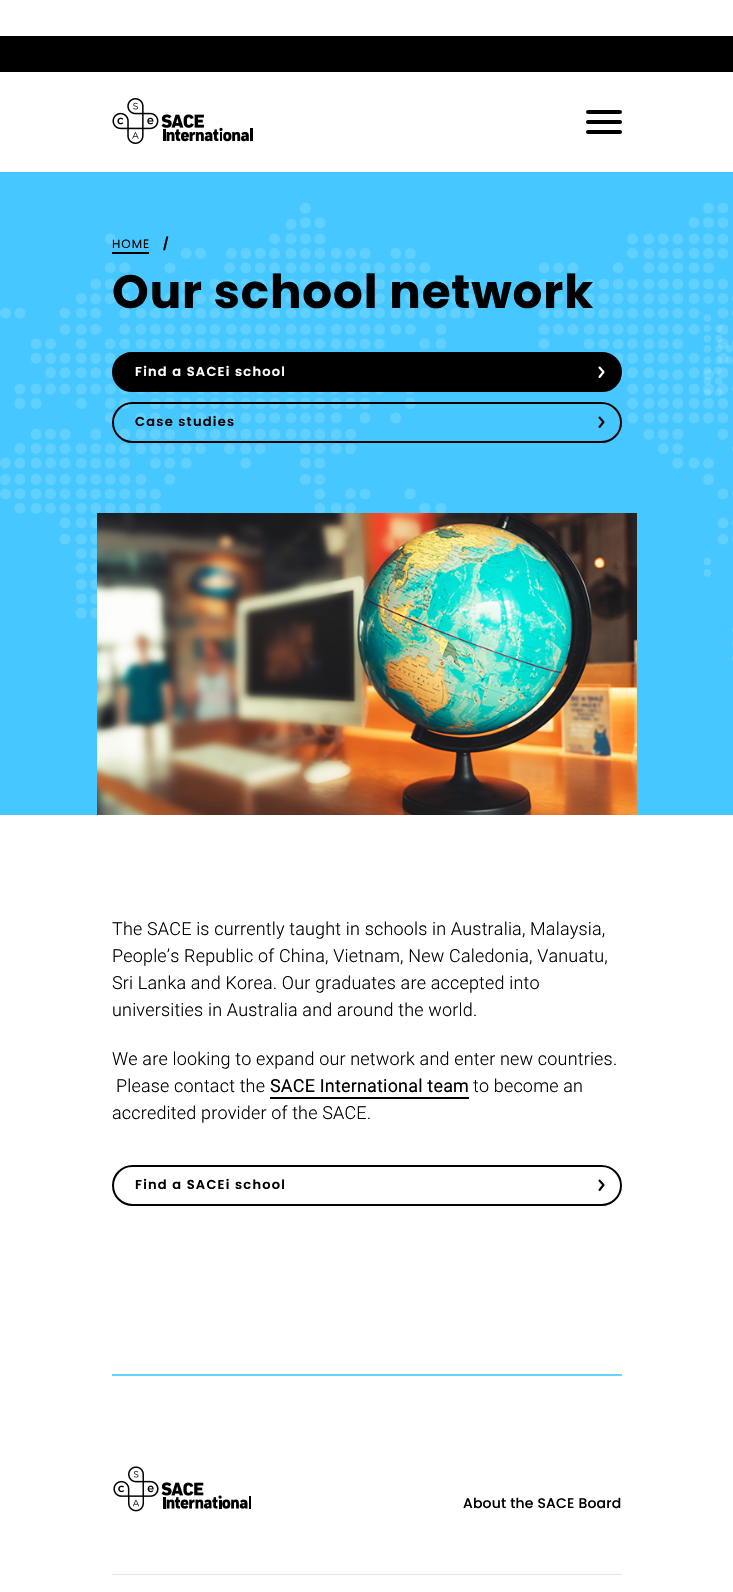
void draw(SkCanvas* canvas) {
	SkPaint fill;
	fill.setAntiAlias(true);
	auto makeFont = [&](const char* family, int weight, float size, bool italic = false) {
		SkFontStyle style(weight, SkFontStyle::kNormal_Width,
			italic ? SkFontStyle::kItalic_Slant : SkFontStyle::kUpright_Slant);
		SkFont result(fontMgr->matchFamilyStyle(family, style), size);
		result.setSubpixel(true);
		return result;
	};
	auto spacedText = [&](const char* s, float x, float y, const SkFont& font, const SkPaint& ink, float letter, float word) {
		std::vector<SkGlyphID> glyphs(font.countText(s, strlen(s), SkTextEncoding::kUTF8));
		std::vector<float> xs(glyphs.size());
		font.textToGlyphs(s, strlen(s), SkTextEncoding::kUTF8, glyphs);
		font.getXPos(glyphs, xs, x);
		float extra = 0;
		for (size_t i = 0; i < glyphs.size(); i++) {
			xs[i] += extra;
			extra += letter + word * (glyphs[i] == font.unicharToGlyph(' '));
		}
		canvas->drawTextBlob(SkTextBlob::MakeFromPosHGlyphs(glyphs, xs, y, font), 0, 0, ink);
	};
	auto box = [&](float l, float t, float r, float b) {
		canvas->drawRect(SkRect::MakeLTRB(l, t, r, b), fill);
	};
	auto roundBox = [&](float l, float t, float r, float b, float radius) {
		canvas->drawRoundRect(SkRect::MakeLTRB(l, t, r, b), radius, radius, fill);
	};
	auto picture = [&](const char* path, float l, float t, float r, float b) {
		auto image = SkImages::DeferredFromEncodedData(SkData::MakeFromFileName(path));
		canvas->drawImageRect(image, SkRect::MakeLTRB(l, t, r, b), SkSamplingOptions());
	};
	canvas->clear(0xFFFFFFFF);
	fill.setColor(0xFF000000);
	box(0, 36, 733, 72);
	picture("image0.png", 112, 98, 253, 144);
	roundBox(586, 110, 622, 114, 2);
	roundBox(586, 120, 622, 124, 2);
	roundBox(586, 130, 622, 134, 2);
	fill.setColor(0xFF46C7FF);
	box(0, 172, 733, 815);
	picture("image3.png", 703, 314, 733, 577);
	picture("image1.png", 0, 202, 733, 661);
	fill.setColor(0xFF000000);
	box(112, 252, 149, 254);
	canvas->drawRoundRect(SkRect::MakeLTRB(113, 353, 621, 391), 19, 19, fill);
	fill.setStyle(SkPaint::kStroke_Style);
	fill.setStrokeWidth(2);
	canvas->drawRoundRect(SkRect::MakeLTRB(113, 353, 621, 391), 19, 19, fill);
	fill.setStrokeWidth(2.1f);
	fill.setStrokeCap(SkPaint::kRound_Cap);
	fill.setStrokeJoin(SkPaint::kRound_Join);
	fill.setColor(0xFFFFFFFF);
	canvas->drawPath(SkPathBuilder().moveTo(599.5f, 367.5f).lineTo(603.5f, 372).lineTo(599.5f, 377).detach(), fill);
	fill.setStrokeWidth(2);
	fill.setStrokeCap(SkPaint::kButt_Cap);
	fill.setStrokeJoin(SkPaint::kMiter_Join);
	fill.setColor(0xFF000000);
	canvas->drawRoundRect(SkRect::MakeLTRB(113, 403, 621, 442), 19.5f, 19.5f, fill);
	fill.setStrokeWidth(2.1f);
	fill.setStrokeCap(SkPaint::kRound_Cap);
	fill.setStrokeJoin(SkPaint::kRound_Join);
	canvas->drawPath(SkPathBuilder().moveTo(599.5f, 417.5f).lineTo(603.5f, 422).lineTo(599.5f, 427).detach(), fill);
	picture("image2.png", 97, 513, 637, 815);
	fill.setStyle(SkPaint::kFill_Style);
	box(270, 1097, 469, 1099);
	fill.setStyle(SkPaint::kStroke_Style);
	fill.setStrokeWidth(2);
	fill.setStrokeCap(SkPaint::kButt_Cap);
	fill.setStrokeJoin(SkPaint::kMiter_Join);
	canvas->drawRoundRect(SkRect::MakeLTRB(113, 1166, 621, 1205), 19.5f, 19.5f, fill);
	fill.setStrokeWidth(2.1f);
	fill.setStrokeCap(SkPaint::kRound_Cap);
	fill.setStrokeJoin(SkPaint::kRound_Join);
	canvas->drawPath(SkPathBuilder().moveTo(599.5f, 1180.5f).lineTo(603.5f, 1185).lineTo(599.5f, 1190).detach(), fill);
	fill.setStyle(SkPaint::kFill_Style);
	fill.setColor(0xFF67D1FF);
	box(112, 1374, 622, 1376);
	picture("image4.png", 113, 1466, 251, 1512);
	fill.setColor(0xFFE7E7E7);
	box(112, 1574, 622, 1575);
	auto font1 = makeFont("Poppins", 400, 12);
	fill.setColor(0xFF000000);
	spacedText("HOME", 112, 248, font1, fill, 1, 0);
	auto font2 = makeFont("Poppins", 700, 12);
	spacedText("/", 163, 248, font2, fill, 1, 0);
	auto font3 = makeFont("Poppins", 700, 46.75f);
	spacedText("Our school network", 112, 308, font3, fill, 0.9f, 0);
	auto font4 = makeFont("Poppins", 600, 13);
	fill.setColor(0xFFFFFFFF);
	spacedText("Find a SACEi school", 135, 376, font4, fill, 1.25f, 0);
	fill.setColor(0xFF000000);
	spacedText("Case studies", 135, 426, font4, fill, 1.25f, 0);
	auto font5 = makeFont("Roboto", 300, 18);
	spacedText("The SACE is currently taught in schools in Australia, Malaysia,", 112, 935, font5, fill, 0.18f, 0);
	spacedText("People’s Republic of China, Vietnam, New Caledonia, Vanuatu,", 112, 962, font5, fill, 0.18f, 0);
	spacedText("Sri Lanka and Korea. Our graduates are accepted into", 112, 989, font5, fill, 0.18f, 0);
	spacedText("universities in Australia and around the world.", 112, 1016, font5, fill, 0.18f, 0);
	spacedText("We are looking to expand our network and enter new countries.", 112, 1065, font5, fill, 0.18f, 0);
	spacedText("Please contact the", 116, 1092, font5, fill, 0.18f, 0);
	auto font6 = makeFont("Roboto", 400, 18);
	spacedText("SACE International team", 270, 1092, font6, fill, 0.18f, 0);
	spacedText("to become an", 473, 1092, font5, fill, 0.18f, 0);
	spacedText("accredited provider of the SACE.", 112, 1119, font5, fill, 0.18f, 0);
	spacedText("Find a SACEi school", 135, 1189, font4, fill, 1.25f, 0);
	auto font7 = makeFont("Poppins", 500, 14);
	spacedText("About the SACE Board", 463, 1508, font7, fill, 0.18f, 0);
}
